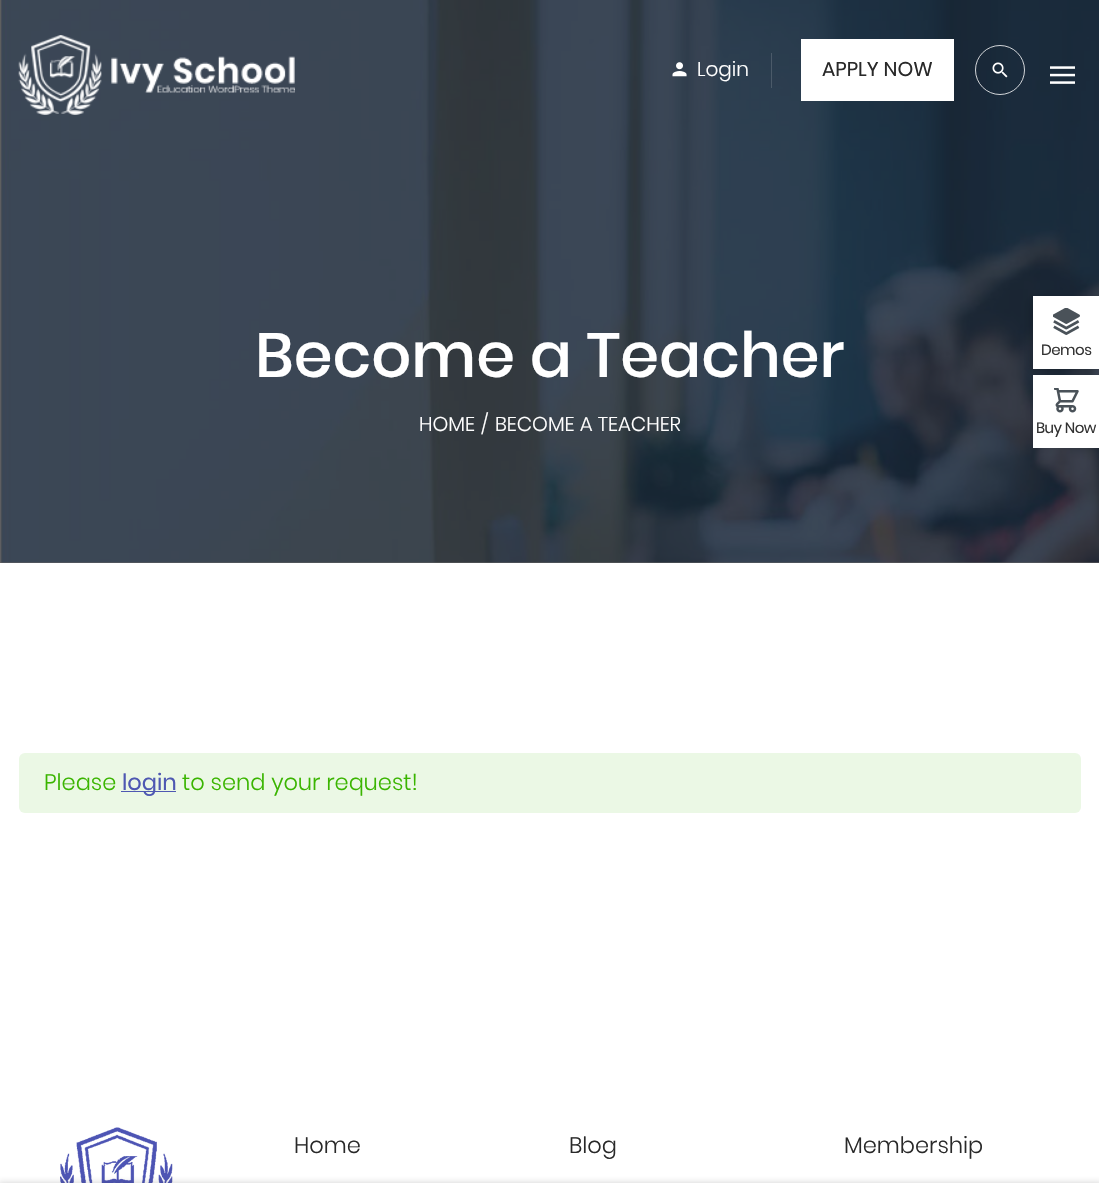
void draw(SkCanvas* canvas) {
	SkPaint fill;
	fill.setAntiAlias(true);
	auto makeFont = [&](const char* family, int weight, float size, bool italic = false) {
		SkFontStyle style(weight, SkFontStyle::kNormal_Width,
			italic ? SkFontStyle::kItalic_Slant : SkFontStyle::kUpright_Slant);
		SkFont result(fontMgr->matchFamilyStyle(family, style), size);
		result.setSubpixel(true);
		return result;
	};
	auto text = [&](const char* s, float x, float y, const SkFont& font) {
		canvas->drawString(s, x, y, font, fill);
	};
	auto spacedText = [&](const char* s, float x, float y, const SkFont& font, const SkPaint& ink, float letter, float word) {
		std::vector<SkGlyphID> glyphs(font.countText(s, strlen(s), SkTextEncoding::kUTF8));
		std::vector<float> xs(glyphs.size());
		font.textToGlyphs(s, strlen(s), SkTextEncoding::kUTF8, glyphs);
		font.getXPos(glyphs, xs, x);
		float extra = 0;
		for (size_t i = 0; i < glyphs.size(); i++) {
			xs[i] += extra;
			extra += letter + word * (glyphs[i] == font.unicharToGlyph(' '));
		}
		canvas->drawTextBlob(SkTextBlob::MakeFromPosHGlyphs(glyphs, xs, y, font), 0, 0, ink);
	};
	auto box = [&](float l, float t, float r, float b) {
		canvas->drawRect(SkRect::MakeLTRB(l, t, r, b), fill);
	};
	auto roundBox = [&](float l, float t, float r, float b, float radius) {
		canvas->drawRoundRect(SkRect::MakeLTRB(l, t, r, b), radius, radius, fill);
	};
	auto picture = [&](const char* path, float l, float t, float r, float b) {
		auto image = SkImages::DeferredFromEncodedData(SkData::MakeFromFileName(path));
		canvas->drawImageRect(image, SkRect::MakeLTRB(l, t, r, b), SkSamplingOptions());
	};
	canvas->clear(0xFFFFFFFF);
	fill.setColor(0xFF646464);
	box(0, 562, 1099, 563);
	picture("image4.png", 0, 0, 1099, 563);
	picture("image0.png", 18, 35, 295, 115);
	fill.setColor(0xFF4B5A69);
	box(771, 53, 772, 88);
	picture("image1.png", 672, 62, 687, 77);
	fill.setColor(0xFFFFFFFF);
	box(801, 39, 954, 101);
	fill.setStyle(SkPaint::kStroke_Style);
	fill.setStrokeWidth(1);
	fill.setColor(0xCCFFFFFF);
	canvas->drawCircle(1000, 70, 24.5f, fill);
	picture("image2.png", 992, 62, 1008, 78);
	picture("image3.png", 1050, 66, 1075, 84);
	fill.setStyle(SkPaint::kFill_Style);
	fill.setColor(0xFFEBF8E5);
	roundBox(19, 753, 1081, 813, 6);
	fill.setColor(0xFF4E58B2);
	box(121, 791, 176, 792);
	picture("image5.png", 60, 1127, 173, 1183);
	fill.setColor(0x24000000);
	fill.setMaskFilter(SkMaskFilter::MakeBlur(kNormal_SkBlurStyle, 4));
	canvas->drawRect(SkRect::MakeLTRB(1030, 300, 1095, 370), fill);
	fill.setMaskFilter(nullptr);
	fill.setColor(0xFFFFFFFF);
	box(1033, 296, 1099, 369);
	picture("image6.png", 1053, 308, 1080, 335);
	box(1033, 375, 1099, 448);
	picture("image7.png", 1054, 388, 1079, 413);
	fill.setColor(0x662A2A2A);
	fill.setMaskFilter(SkMaskFilter::MakeBlur(kNormal_SkBlurStyle, 4));
	canvas->drawRect(SkRect::MakeLTRB(-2, 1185, 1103, 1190), fill);
	fill.setMaskFilter(nullptr);
	auto font1 = makeFont("Poppins", 300, 20);
	fill.setColor(0xFFFFFFFF);
	text("Login", 697, 76, font1);
	auto font2 = makeFont("Poppins", 400, 20);
	fill.setColor(0xFF292929);
	text("APPLY NOW", 822, 76, font2);
	auto font3 = makeFont("Poppins", 500, 62.5f);
	fill.setColor(0xFFFFFFFF);
	text("Become a Teacher", 255, 377, font3);
	text("HOME", 419, 431, font1);
	text("/", 481, 431, font1);
	text("BECOME A TEACHER", 495, 431, font1);
	auto font4 = makeFont("Poppins", 300, 22.5f);
	fill.setColor(0xFF3AB500);
	text("Please", 44, 790, font4);
	auto font5 = makeFont("Poppins", 400, 22.5f);
	fill.setColor(0xFF4E58B2);
	text("login", 122, 790, font5);
	fill.setColor(0xFF3AB500);
	text("to send your request!", 182, 790, font4);
	fill.setColor(0xFF292929);
	text("Home", 294, 1153, font4);
	text("Blog", 569, 1153, font4);
	text("Membership", 844, 1153, font4);
	auto font6 = makeFont("Poppins", 400, 15);
	fill.setColor(0xFF333333);
	spacedText("Demos", 1041, 355, font6, fill, -0.5f, 0);
	spacedText("Buy Now", 1036, 433, font6, fill, -0.5f, 0);
}
